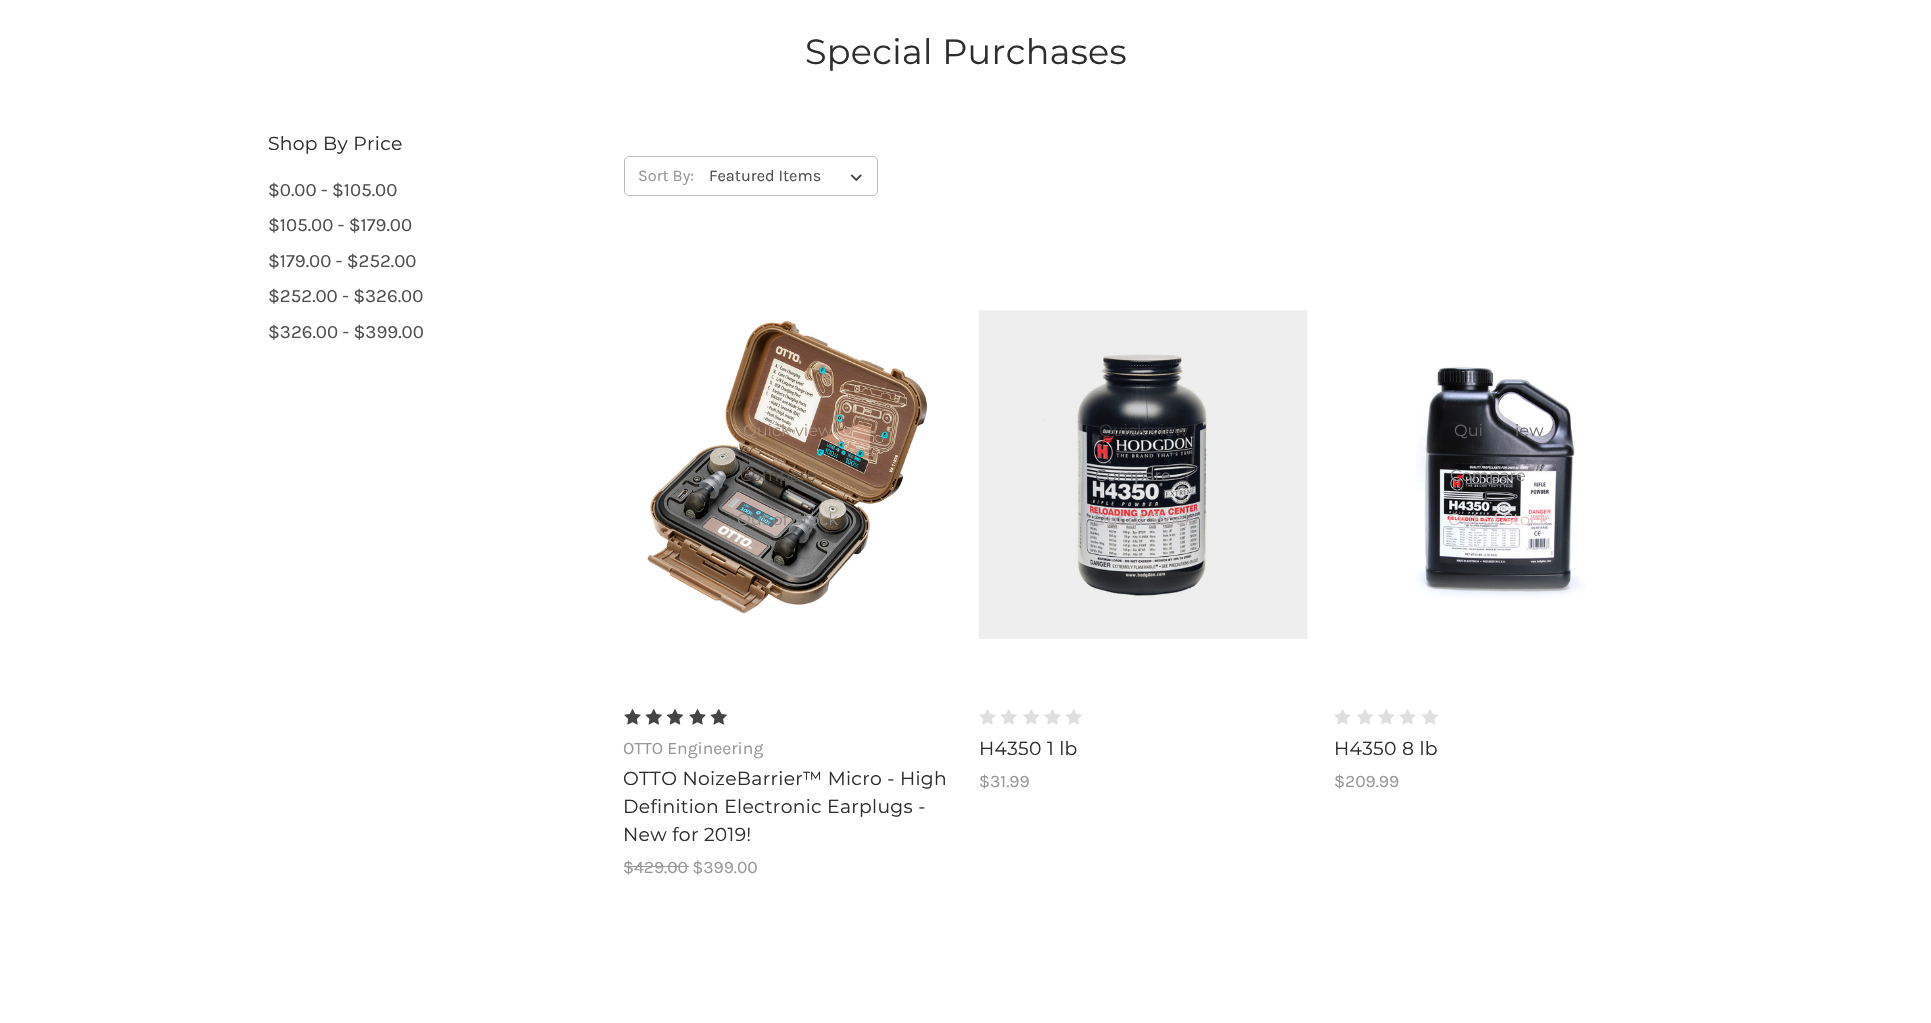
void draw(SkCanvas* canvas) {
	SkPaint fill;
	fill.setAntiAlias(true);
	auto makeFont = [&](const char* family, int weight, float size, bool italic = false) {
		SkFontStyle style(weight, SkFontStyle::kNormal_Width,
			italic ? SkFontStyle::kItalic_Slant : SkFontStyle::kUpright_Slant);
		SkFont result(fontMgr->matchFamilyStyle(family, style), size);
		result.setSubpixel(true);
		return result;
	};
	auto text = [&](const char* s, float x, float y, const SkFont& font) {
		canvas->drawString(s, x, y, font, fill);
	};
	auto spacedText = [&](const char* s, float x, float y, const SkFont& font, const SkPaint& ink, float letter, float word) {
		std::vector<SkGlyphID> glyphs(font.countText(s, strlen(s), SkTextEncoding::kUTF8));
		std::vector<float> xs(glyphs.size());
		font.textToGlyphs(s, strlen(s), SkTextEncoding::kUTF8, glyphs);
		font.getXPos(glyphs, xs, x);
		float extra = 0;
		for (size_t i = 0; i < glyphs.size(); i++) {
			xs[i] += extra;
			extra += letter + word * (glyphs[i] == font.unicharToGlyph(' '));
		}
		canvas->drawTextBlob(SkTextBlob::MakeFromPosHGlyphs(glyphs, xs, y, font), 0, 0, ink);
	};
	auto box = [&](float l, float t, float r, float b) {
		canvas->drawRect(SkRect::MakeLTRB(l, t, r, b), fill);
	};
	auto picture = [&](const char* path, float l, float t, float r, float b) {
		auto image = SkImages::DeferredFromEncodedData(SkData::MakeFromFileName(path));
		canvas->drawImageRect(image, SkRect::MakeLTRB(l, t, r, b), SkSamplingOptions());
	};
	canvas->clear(0xFFFFFFFF);
	fill.setStyle(SkPaint::kStroke_Style);
	fill.setStrokeWidth(1);
	fill.setColor(0xFFBBB9B9);
	canvas->drawRoundRect(SkRect::MakeLTRB(624.5f, 156.5f, 877.5f, 195.5f), 4.5f, 4.5f, fill);
	picture("image0.png", 850, 174, 862, 182);
	picture("image1.png", 647, 321, 928, 614);
	picture("image2.png", 624, 709, 641, 725);
	picture("image3.png", 645, 709, 662, 725);
	picture("image4.png", 666, 709, 683, 725);
	picture("image2.png", 689, 709, 706, 725);
	picture("image3.png", 710, 709, 727, 725);
	fill.setStyle(SkPaint::kFill_Style);
	fill.setColor(0xFF989898);
	box(624, 866, 689, 867);
	picture("image5.png", 978, 310, 1308, 639);
	picture("image6.png", 979, 709, 996, 725);
	picture("image7.png", 1000, 709, 1017, 725);
	picture("image8.png", 1023, 709, 1040, 725);
	picture("image6.png", 1044, 709, 1061, 725);
	picture("image7.png", 1065, 709, 1082, 725);
	picture("image9.png", 1416, 364, 1586, 598);
	picture("image6.png", 1334, 709, 1351, 725);
	picture("image10.png", 1357, 709, 1373, 725);
	picture("image8.png", 1378, 709, 1395, 725);
	picture("image6.png", 1399, 709, 1416, 725);
	picture("image10.png", 1422, 709, 1438, 725);
	auto font1 = makeFont("Montserrat", 100, 35);
	fill.setColor(0xFF2D2D2D);
	spacedText("Special Purchases", 805, 64, font1, fill, 0.3f, 0);
	auto font2 = makeFont("Montserrat", 100, 18.75f);
	spacedText("Shop By Price", 268, 150, font2, fill, 0.3f, 0);
	auto font3 = makeFont("Karla", 400, 18.75f);
	fill.setColor(0xFF4F4F4F);
	text("$0.00 - $105.00", 268, 196, font3);
	text("$105.00 - $179.00", 268, 231, font3);
	text("$179.00 - $252.00", 268, 267, font3);
	text("$252.00 - $326.00", 268, 302, font3);
	text("$326.00 - $399.00", 268, 338, font3);
	auto font4 = makeFont("Karla", 400, 16.25f);
	fill.setColor(0xFF989898);
	text("Sort By:", 638, 181, font4);
	fill.setColor(0xFF4F4F4F);
	text("Featured Items", 709, 181, font4);
	auto font5 = makeFont("Montserrat", 100, 16.25f);
	fill.setColor(0xFFA98C79);
	text("Quick view", 743, 436, font5);
	fill.setColor(0xFF5D5248);
	text("Compare", 740, 481, font5);
	fill.setColor(0xFF8D8A87);
	text("Out of Stock", 737, 525, font5);
	auto font6 = makeFont("Karla", 400, 17.5f);
	fill.setColor(0xFF989898);
	text("OTTO Engineering", 623, 754, font6);
	fill.setColor(0xFF2D2D2D);
	spacedText("OTTO NoizeBarrier™ Micro - High", 623, 785, font2, fill, 0.3f, 0);
	spacedText("Definition Electronic Earplugs -", 623, 813, font2, fill, 0.3f, 0);
	spacedText("New for 2019!", 623, 841, font2, fill, 0.3f, 0);
	fill.setColor(0xFF989898);
	text("$429.00 $399.00", 623, 873, font6);
	fill.setColor(0xFF38363B);
	text("Quick view", 1099, 436, font5);
	fill.setColor(0xFF737579);
	text("Compare", 1095, 481, font5);
	fill.setColor(0xFFB8AFB1);
	text("Out of Stock", 1093, 525, font5);
	fill.setColor(0xFF2D2D2D);
	spacedText("H4350 1 lb", 979, 755, font2, fill, 0.3f, 0);
	fill.setColor(0xFF989898);
	text("$31.99", 979, 787, font6);
	fill.setColor(0xFF66666D);
	text("Qui", 1454, 436, font5);
	text("iew", 1515, 436, font5);
	fill.setColor(0xFF928E91);
	text("Compare", 1450, 481, font5);
	fill.setColor(0xFFDDC6CA);
	text("Out of Stock", 1448, 525, font5);
	fill.setColor(0xFF2D2D2D);
	spacedText("H4350 8 lb", 1334, 755, font2, fill, 0.3f, 0);
	fill.setColor(0xFF989898);
	text("$209.99", 1334, 787, font6);
}
